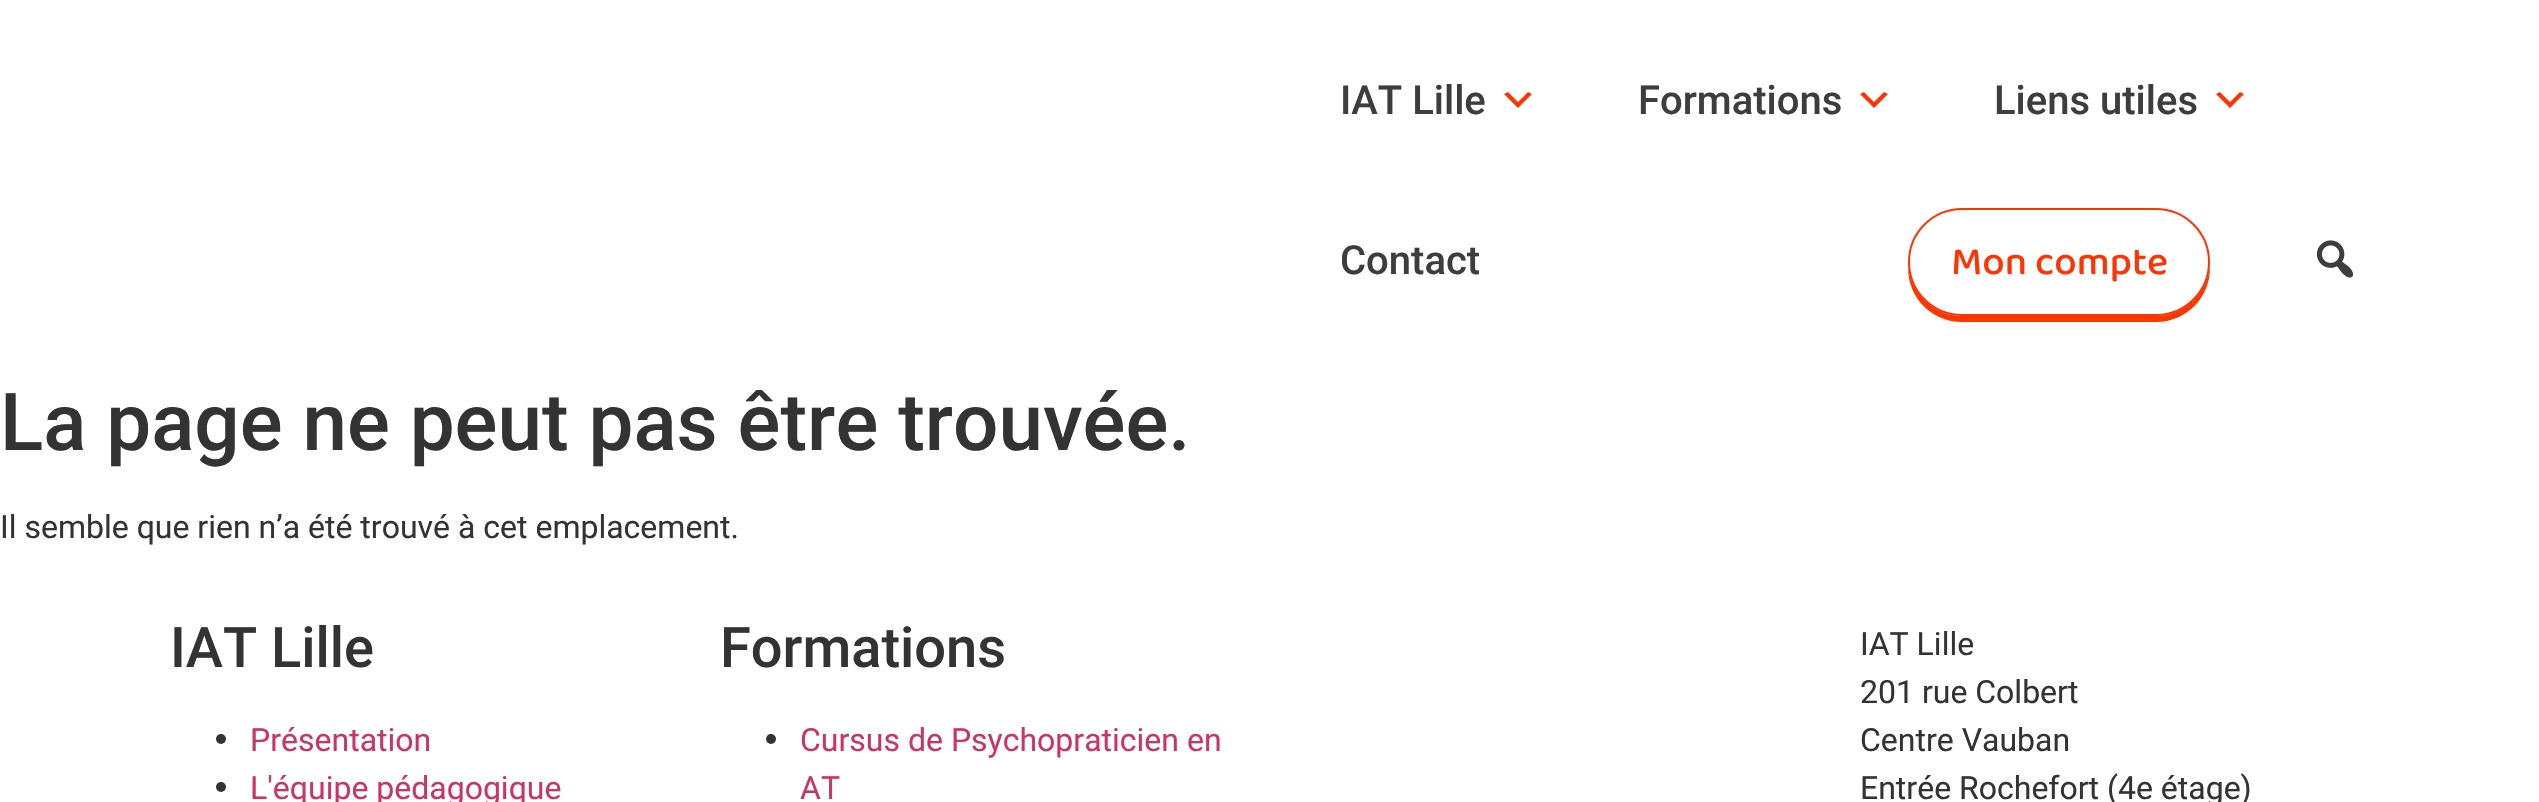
void draw(SkCanvas* canvas) {
	SkPaint fill;
	fill.setAntiAlias(true);
	auto makeFont = [&](const char* family, int weight, float size, bool italic = false) {
		SkFontStyle style(weight, SkFontStyle::kNormal_Width,
			italic ? SkFontStyle::kItalic_Slant : SkFontStyle::kUpright_Slant);
		SkFont result(fontMgr->matchFamilyStyle(family, style), size);
		result.setSubpixel(true);
		return result;
	};
	auto text = [&](const char* s, float x, float y, const SkFont& font) {
		canvas->drawString(s, x, y, font, fill);
	};
	auto picture = [&](const char* path, float l, float t, float r, float b) {
		auto image = SkImages::DeferredFromEncodedData(SkData::MakeFromFileName(path));
		canvas->drawImageRect(image, SkRect::MakeLTRB(l, t, r, b), SkSamplingOptions());
	};
	canvas->clear(0xFFFFFFFF);
	fill.setColor(0xFFFE3402);
	canvas->drawPath(SkPathBuilder().moveTo(1508, 92).lineTo(1518, 102).lineTo(1528, 92).lineTo(1532, 94).lineTo(1518, 108).lineTo(1504, 94).close().detach(), fill);
	canvas->drawPath(SkPathBuilder().moveTo(1864, 92).lineTo(1874, 102).lineTo(1884, 92).lineTo(1888, 94).lineTo(1874, 108).lineTo(1860, 94).close().detach(), fill);
	canvas->drawPath(SkPathBuilder().moveTo(2220, 92).lineTo(2230, 102).lineTo(2240, 92).lineTo(2244, 94).lineTo(2230, 108).lineTo(2216, 94).close().detach(), fill);
	canvas->drawPath(SkPathBuilder().moveTo(1908, 265).lineTo(1908, 268).cubicTo(1908, 298, 1932, 322, 1962, 322).lineTo(2156, 322).cubicTo(2186, 322, 2210, 298, 2210, 268).lineTo(2210, 265).cubicTo(2208, 293, 2185, 316, 2156, 316).lineTo(1962, 316).cubicTo(1933, 316, 1910, 293, 1908, 265).close().detach(), fill);
	fill.setColor(0xFFFFFFFF);
	canvas->drawRoundRect(SkRect::MakeLTRB(1909, 209, 2209, 315), 53, 53, fill);
	fill.setStyle(SkPaint::kStroke_Style);
	fill.setStrokeWidth(2);
	fill.setColor(0xFFFE3402);
	canvas->drawRoundRect(SkRect::MakeLTRB(1909, 209, 2209, 315), 53, 53, fill);
	picture("image0.png", 2316, 240, 2354, 278);
	fill.setStyle(SkPaint::kFill_Style);
	fill.setColor(0xFF333333);
	canvas->drawCircle(221, 739, 5, fill);
	canvas->drawCircle(221, 787, 5, fill);
	canvas->drawCircle(771, 739, 5, fill);
	auto font1 = makeFont("Roboto", 500, 40);
	fill.setColor(0xFF3D3D3D);
	text("IAT Lille", 1340, 114, font1);
	text("Formations", 1638, 114, font1);
	text("Liens utiles", 1994, 114, font1);
	text("Contact", 1340, 274, font1);
	auto font2 = makeFont("Baloo 2", 500, 40);
	fill.setColor(0xFFFE3402);
	text("Mon compte", 1951, 274, font2);
	auto font3 = makeFont("Roboto", 500, 80);
	fill.setColor(0xFF333333);
	text("La page ne peut pas être trouvée.", 0, 450, font3);
	auto font4 = makeFont("Roboto", 400, 32);
	text("Il semble que rien n’a été trouvé à cet emplacement.", 0, 538, font4);
	auto font5 = makeFont("Roboto", 500, 56);
	text("IAT Lille", 170, 667, font5);
	fill.setColor(0xFFCC3366);
	text("Présentation", 250, 751, font4);
	text("L'équipe pédagogique", 250, 799, font4);
	fill.setColor(0xFF333333);
	text("Formations", 720, 667, font5);
	fill.setColor(0xFFCC3366);
	text("Cursus de Psychopraticien en", 800, 751, font4);
	text("AT", 800, 799, font4);
	fill.setColor(0xFF333333);
	text("IAT Lille", 1860, 655, font4);
	text("201 rue Colbert", 1860, 703, font4);
	text("Centre Vauban", 1860, 751, font4);
	text("Entrée Rochefort (4e étage)", 1860, 799, font4);
}
